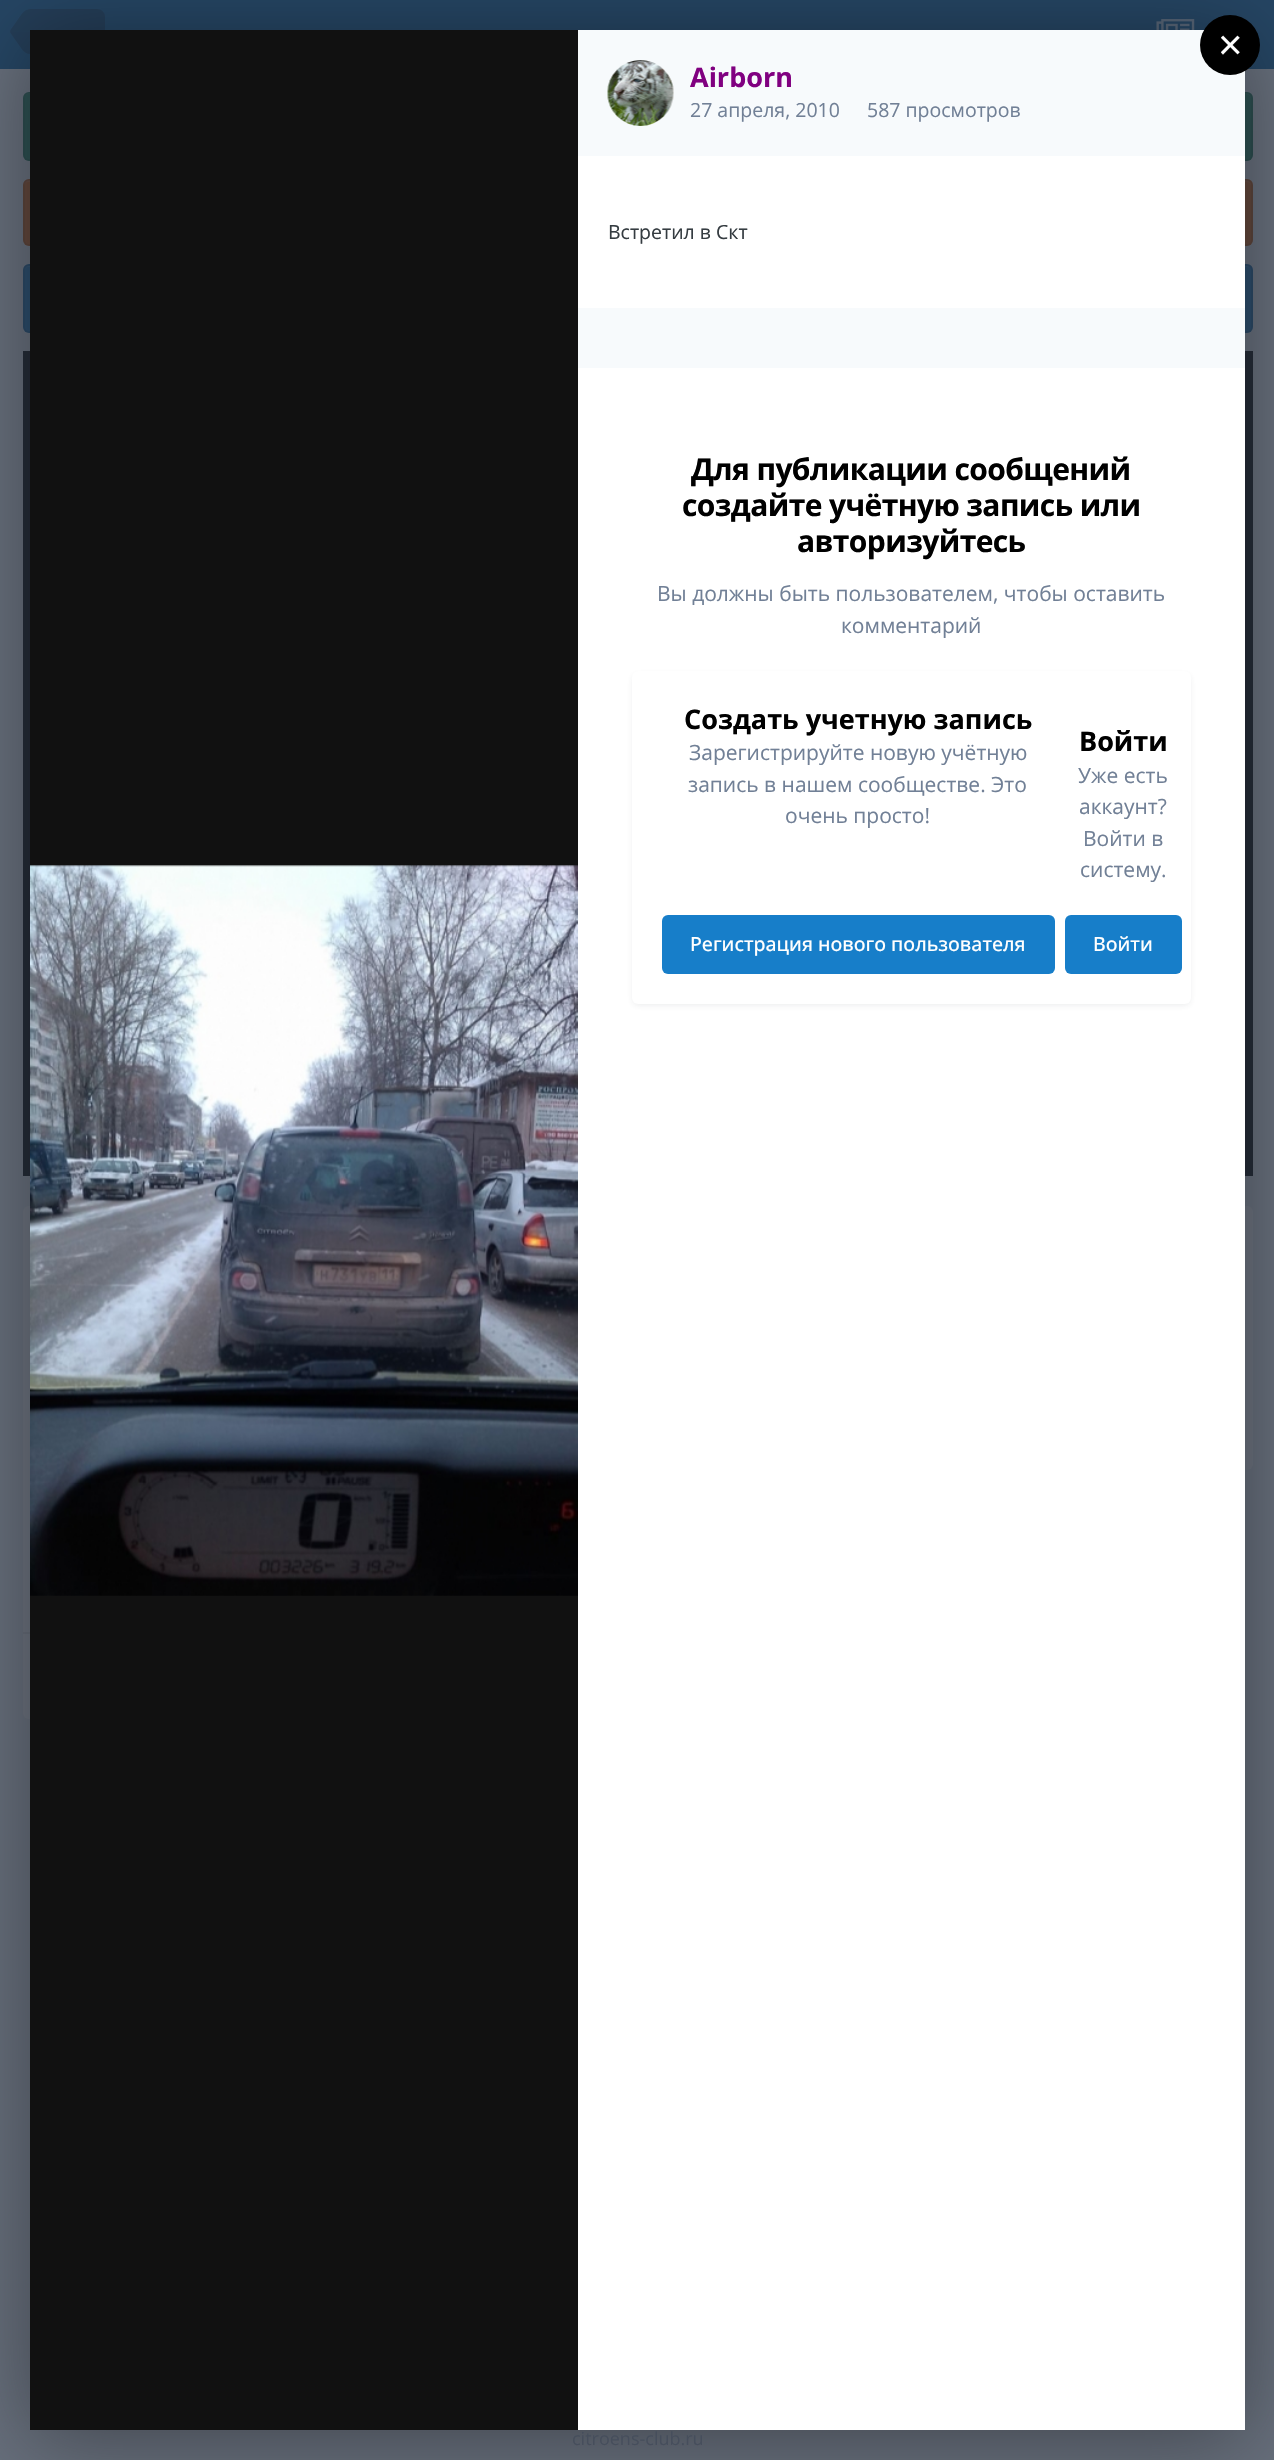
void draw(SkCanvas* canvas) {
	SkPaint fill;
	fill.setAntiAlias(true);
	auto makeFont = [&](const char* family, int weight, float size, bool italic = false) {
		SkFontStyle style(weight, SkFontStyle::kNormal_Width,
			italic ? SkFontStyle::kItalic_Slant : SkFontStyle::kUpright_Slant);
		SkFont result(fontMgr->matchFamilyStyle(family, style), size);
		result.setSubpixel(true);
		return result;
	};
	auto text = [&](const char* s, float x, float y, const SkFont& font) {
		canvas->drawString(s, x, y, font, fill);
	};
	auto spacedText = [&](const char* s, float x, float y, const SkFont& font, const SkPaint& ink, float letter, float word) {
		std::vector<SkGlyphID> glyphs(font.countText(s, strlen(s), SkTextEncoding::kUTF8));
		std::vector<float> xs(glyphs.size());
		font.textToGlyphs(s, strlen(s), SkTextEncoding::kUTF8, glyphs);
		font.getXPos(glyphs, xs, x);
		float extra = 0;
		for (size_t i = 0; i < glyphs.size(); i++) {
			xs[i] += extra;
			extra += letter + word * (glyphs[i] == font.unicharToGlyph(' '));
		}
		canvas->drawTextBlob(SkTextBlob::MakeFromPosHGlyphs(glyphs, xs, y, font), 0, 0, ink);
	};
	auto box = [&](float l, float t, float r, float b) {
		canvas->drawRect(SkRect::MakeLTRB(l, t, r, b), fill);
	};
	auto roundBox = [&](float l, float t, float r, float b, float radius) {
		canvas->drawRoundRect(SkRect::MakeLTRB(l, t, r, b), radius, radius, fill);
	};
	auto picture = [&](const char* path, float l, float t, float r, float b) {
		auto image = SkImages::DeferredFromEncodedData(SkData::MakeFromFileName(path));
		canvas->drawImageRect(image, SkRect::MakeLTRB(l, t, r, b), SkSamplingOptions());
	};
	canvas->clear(0xFF676F7C);
	fill.setColor(0xFF254563);
	box(0, 0, 1274, 69);
	fill.setColor(0xFF243D57);
	canvas->drawPath(SkPathBuilder().moveTo(30, 9).lineTo(97, 9).cubicTo(101.5f, 9, 105, 12.5f, 105, 17).lineTo(105, 46).cubicTo(105, 50.5f, 101.5f, 54, 97, 54).lineTo(30, 54).close().detach(), fill);
	canvas->drawPath(SkPathBuilder().moveTo(10.5f, 33).lineTo(10, 31.5f).lineTo(30, 31.5f).lineTo(30, 54).cubicTo(27, 54, 23.5f, 52, 21, 48).close().detach(), fill);
	fill.setColor(0x401F2732);
	canvas->drawPath(SkPathBuilder().moveTo(30, 9).lineTo(30, 31.5f).lineTo(10, 31.5f).lineTo(10.5f, 30).lineTo(21, 15).cubicTo(23.5f, 11, 27, 9, 30, 9).close().detach(), fill);
	picture("image0.png", 1156, 19, 1195, 30);
	picture("image1.png", 1246, 20, 1250, 23);
	fill.setColor(0xFF2D5152);
	roundBox(23, 92, 1253, 161, 6);
	fill.setColor(0xFF335456);
	canvas->drawPath(SkPathBuilder().moveTo(28, 94).lineTo(1246, 94).cubicTo(1249, 94, 1251, 97, 1251, 99).cubicTo(1251, 96, 1249, 93, 1246, 93).lineTo(29, 93).cubicTo(26, 93, 24, 96, 24, 99).cubicTo(24, 97, 26, 94, 28, 94).close().detach(), fill);
	fill.setStyle(SkPaint::kStroke_Style);
	fill.setStrokeWidth(2);
	fill.setColor(0x1A1F2732);
	canvas->drawRoundRect(SkRect::MakeLTRB(24, 93, 1252, 160), 5, 5, fill);
	fill.setStyle(SkPaint::kFill_Style);
	fill.setColor(0xFF62473C);
	roundBox(23, 179, 1253, 246, 6);
	fill.setColor(0xFF634B43);
	canvas->drawPath(SkPathBuilder().moveTo(28, 182).lineTo(1246, 182).cubicTo(1249, 182, 1251, 184, 1251, 186).cubicTo(1251, 183, 1249, 180, 1246, 180).lineTo(29, 180).cubicTo(26, 180, 24, 183, 24, 186).cubicTo(24, 184, 26, 182, 28, 182).close().detach(), fill);
	fill.setStyle(SkPaint::kStroke_Style);
	fill.setColor(0x1A1F2732);
	canvas->drawRoundRect(SkRect::MakeLTRB(24, 180, 1252, 245), 5, 5, fill);
	fill.setStyle(SkPaint::kFill_Style);
	fill.setColor(0xFF2C4D6C);
	roundBox(23, 264, 1253, 333, 6);
	fill.setColor(0xFF32516E);
	canvas->drawPath(SkPathBuilder().moveTo(28, 267).lineTo(1246, 267).cubicTo(1249, 267, 1251, 269, 1251, 272).cubicTo(1251, 269, 1249, 266, 1246, 266).lineTo(29, 266).cubicTo(26, 266, 24, 269, 24, 272).cubicTo(24, 269, 26, 267, 28, 267).close().detach(), fill);
	fill.setStyle(SkPaint::kStroke_Style);
	fill.setColor(0x1A1F2732);
	canvas->drawRoundRect(SkRect::MakeLTRB(24, 265, 1252, 332), 5, 5, fill);
	fill.setStyle(SkPaint::kFill_Style);
	fill.setColor(0xFF252C38);
	box(23, 351, 1253, 1176);
	fill.setColor(0xFF6C737F);
	roundBox(23, 1206, 815, 1719, 6);
	fill.setColor(0xFF666D79);
	box(23, 1632, 30, 1634);
	fill.setColor(0xFF6C737F);
	roundBox(851, 1206, 1253, 1470, 6);
	fill.setColor(0x66000000);
	fill.setMaskFilter(SkMaskFilter::MakeBlur(kNormal_SkBlurStyle, 41));
	canvas->drawRect(SkRect::MakeLTRB(30, 38, 1245, 2438), fill);
	fill.setMaskFilter(nullptr);
	fill.setColor(0xFFF7FAFC);
	box(578, 30, 1245, 156);
	fill.setColor(0xFF000000);
	canvas->drawCircle(1230, 45, 30, fill);
	fill.setColor(0xFF111111);
	box(30, 30, 578, 2430);
	fill.setColor(0xFFFFFFFF);
	box(578, 156, 1245, 2430);
	canvas->drawCircle(641, 93, 33, fill);
	picture("image2.png", 607, 60, 674, 126);
	fill.setColor(0xFFF7FAFC);
	box(578, 308, 1245, 368);
	fill.setColor(0x1A2D3748);
	fill.setMaskFilter(SkMaskFilter::MakeBlur(kNormal_SkBlurStyle, 3));
	canvas->drawRoundRect(SkRect::MakeLTRB(633, 675, 1190, 1005), 5, 5, fill);
	fill.setMaskFilter(nullptr);
	fill.setColor(0xFFFFFFFF);
	roundBox(632, 671, 1191, 1004, 6);
	fill.setColor(0xFF177EC9);
	roundBox(662, 915, 1055, 974, 6);
	roundBox(1065, 915, 1182, 974, 6);
	picture("image3.png", 30, 865, 578, 1596);
	auto font1 = makeFont("Liberation Sans", 400, 42);
	fill.setColor(0xFFFFFFFF);
	text("×", 1218, 59, font1);
	auto font2 = makeFont("Open Sans", 700, 27);
	fill.setColor(0xFF800080);
	text("Airborn", 690, 87, font2);
	auto font3 = makeFont("Open Sans", 400, 19.5f);
	fill.setColor(0xFF718096);
	text("27 апреля, 2010", 690, 117, font3);
	text("587 просмотров", 867, 117, font3);
	fill.setColor(0xFF353C41);
	text("Встретил в Скт", 608, 239, font3);
	auto font4 = makeFont("Open Sans", 700, 30);
	fill.setColor(0xFF000000);
	spacedText("Для публикации сообщений", 691, 480, font4, fill, -0.6f, 0);
	spacedText("создайте учётную запись или", 682, 516, font4, fill, -0.6f, 0);
	spacedText("авторизуйтесь", 797, 552, font4, fill, -0.6f, 0);
	auto font5 = makeFont("Open Sans", 400, 21);
	fill.setColor(0xFF718096);
	text("Вы должны быть пользователем, чтобы оставить", 657, 601, font5);
	text("комментарий", 841, 633, font5);
	fill.setColor(0xFF000000);
	text("Создать учетную запись", 684, 729, font2);
	fill.setColor(0xFF718096);
	text("Зарегистрируйте новую учётную", 689, 760, font5);
	text("запись в нашем сообществе. Это", 688, 792, font5);
	text("очень просто!", 785, 823, font5);
	auto font6 = makeFont("Open Sans", 500, 19.5f);
	fill.setColor(0xFFFFFFFF);
	text("Регистрация нового пользователя", 690, 951, font6);
	fill.setColor(0xFF000000);
	text("Войти", 1079, 751, font2);
	fill.setColor(0xFF718096);
	text("Уже есть", 1078, 783, font5);
	text("аккаунт?", 1079, 814, font5);
	text("Войти в", 1083, 846, font5);
	text("систему.", 1080, 877, font5);
	fill.setColor(0xFFFFFFFF);
	text("Войти", 1093, 951, font6);
	auto font7 = makeFont("Open Sans", 400, 18);
	fill.setColor(0xFF464E5C);
	text("citroens-club.ru", 572, 2445, font7);
}
